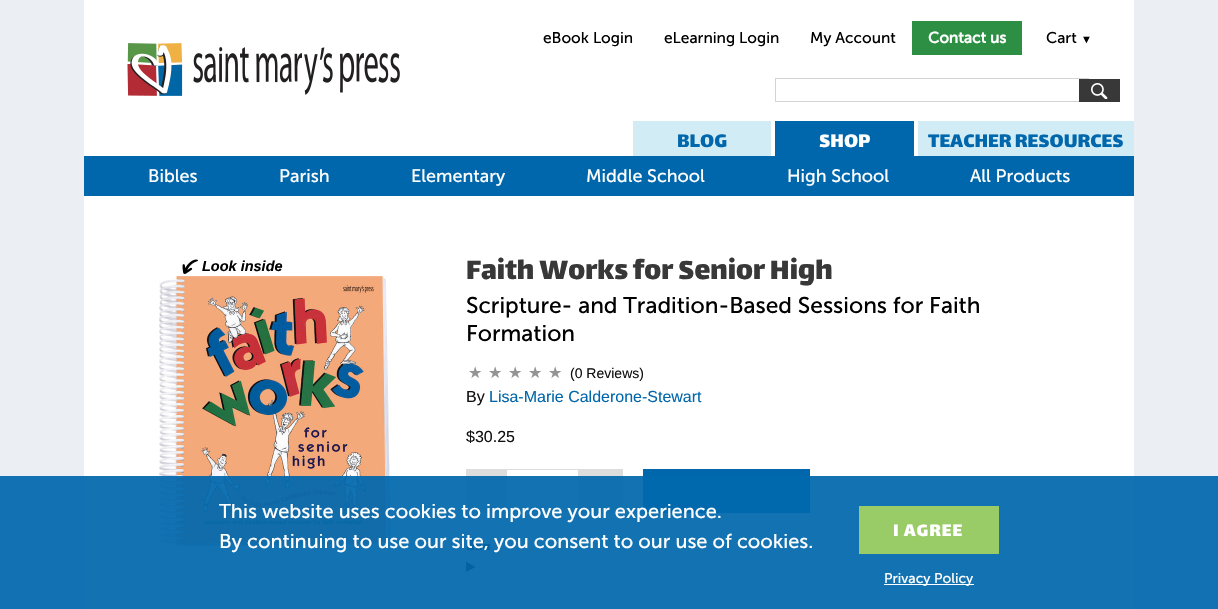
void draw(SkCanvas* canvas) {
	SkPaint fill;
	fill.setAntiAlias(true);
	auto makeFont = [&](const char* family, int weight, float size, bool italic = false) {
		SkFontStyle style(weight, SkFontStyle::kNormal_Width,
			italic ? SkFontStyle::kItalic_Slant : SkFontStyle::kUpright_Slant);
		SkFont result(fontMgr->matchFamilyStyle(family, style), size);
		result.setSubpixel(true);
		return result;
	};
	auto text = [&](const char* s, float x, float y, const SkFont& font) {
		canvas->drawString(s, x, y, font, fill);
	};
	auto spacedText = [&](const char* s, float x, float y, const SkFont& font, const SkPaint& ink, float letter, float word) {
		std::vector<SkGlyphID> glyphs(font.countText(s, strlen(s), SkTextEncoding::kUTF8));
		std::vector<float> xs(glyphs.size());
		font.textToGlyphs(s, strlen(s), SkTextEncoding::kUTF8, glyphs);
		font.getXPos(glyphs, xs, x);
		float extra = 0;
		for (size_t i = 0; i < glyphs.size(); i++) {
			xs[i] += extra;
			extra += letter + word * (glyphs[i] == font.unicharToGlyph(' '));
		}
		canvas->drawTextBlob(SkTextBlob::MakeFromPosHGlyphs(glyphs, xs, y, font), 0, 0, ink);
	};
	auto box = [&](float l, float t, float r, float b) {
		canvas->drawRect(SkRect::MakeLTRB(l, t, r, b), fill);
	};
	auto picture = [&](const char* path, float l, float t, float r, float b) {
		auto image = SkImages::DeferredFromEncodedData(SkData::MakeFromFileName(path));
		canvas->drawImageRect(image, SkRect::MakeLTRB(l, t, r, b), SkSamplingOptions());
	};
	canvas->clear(0xFFEBEFF3);
	fill.setColor(0xFFFFFFFF);
	box(84, 0, 1134, 609);
	fill.setColor(0xFF2C8F44);
	box(912, 21, 1022, 55);
	picture("image0.png", 127, 43, 400, 96);
	fill.setColor(0xFFD3D4D5);
	box(775, 78, 1089, 79);
	box(775, 101, 1079, 102);
	box(775, 78, 776, 102);
	fill.setColor(0xFF383838);
	box(1079, 79, 1120, 102);
	picture("image1.png", 1091, 83, 1108, 99);
	fill.setColor(0xFFD2ECF5);
	box(633, 121, 771, 156);
	fill.setColor(0xFF0067AC);
	box(775, 121, 914, 156);
	fill.setColor(0xFFD2ECF5);
	box(918, 121, 1134, 156);
	fill.setColor(0xFF0067AC);
	box(84, 156, 1134, 196);
	picture("image2.png", 182, 259, 198, 274);
	picture("image3.png", 159, 276, 391, 546);
	fill.setColor(0xFFDDDDDD);
	box(466, 469, 506, 513);
	fill.setStyle(SkPaint::kStroke_Style);
	fill.setStrokeWidth(1);
	canvas->drawRect(SkRect::MakeLTRB(506.5f, 469.5f, 578.5f, 511.5f), fill);
	fill.setStyle(SkPaint::kFill_Style);
	box(579, 469, 623, 513);
	fill.setColor(0xFF0067AC);
	box(643, 469, 810, 513);
	fill.setColor(0xFF221F20);
	box(467, 539, 474, 550);
	box(476, 542, 482, 550);
	box(483, 544, 490, 550);
	fill.setColor(0xFF111111);
	canvas->drawPath(SkPathBuilder().moveTo(466, 561.5f).lineTo(475.5f, 567).lineTo(466, 572).close().detach(), fill);
	fill.setColor(0xED0067AC);
	box(0, 476, 1218, 609);
	fill.setColor(0xFF99CB66);
	box(859, 506, 999, 554);
	fill.setColor(0xFFFFFFFF);
	box(884, 584, 974, 585);
	auto font1 = makeFont("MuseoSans", 400, 15.5f);
	fill.setColor(0xFF000000);
	text("eBook Login", 543, 43, font1);
	text("eLearning Login", 664, 43, font1);
	text("My Account", 810, 43, font1);
	auto font2 = makeFont("MuseoSans", 700, 15.5f);
	fill.setColor(0xFFFFFFFF);
	text("Contact us", 928, 43, font2);
	fill.setColor(0xFF000000);
	text("Cart", 1046, 43, font1);
	auto font3 = makeFont("Liberation Sans", 400, 11);
	text("▼", 1081, 43, font3);
	auto font4 = makeFont("Lalezar", 400, 22);
	fill.setColor(0xFF0067AC);
	text("BLOG", 677, 147, font4);
	fill.setColor(0xFFFFFFFF);
	text("SHOP", 819, 147, font4);
	fill.setColor(0xFF0067AC);
	text("TEACHER RESOURCES", 928, 147, font4);
	auto font5 = makeFont("MuseoSans", 400, 18);
	fill.setColor(0xFFFFFFFF);
	text("Bibles", 148, 182, font5);
	text("Parish", 279, 182, font5);
	text("Elementary", 411, 182, font5);
	text("Middle School", 586, 182, font5);
	text("High School", 787, 182, font5);
	text("All Products", 970, 182, font5);
	auto font6 = makeFont("Liberation Sans", 700, 14.5f, true);
	fill.setColor(0xFF000000);
	text("Look inside", 202, 271, font6);
	auto font7 = makeFont("Lalezar", 400, 32);
	fill.setColor(0xFF383838);
	text("Faith Works for Senior High", 466, 279, font7);
	auto font8 = makeFont("MuseoSans", 400, 22.75f);
	fill.setColor(0xFF000000);
	text("Scripture- and Tradition-Based Sessions for Faith", 466, 313, font8);
	text("Formation", 466, 341, font8);
	auto font9 = makeFont("DejaVu Sans", 400, 16);
	fill.setColor(0xFF949494);
	text("★", 468, 378, font9);
	text("★", 488, 378, font9);
	text("★", 508, 378, font9);
	text("★", 528, 378, font9);
	text("★", 548, 378, font9);
	auto font10 = makeFont("Liberation Sans", 400, 14);
	fill.setColor(0xFF111111);
	text("(0 Reviews)", 570, 378, font10);
	auto font11 = makeFont("Liberation Sans", 400, 16);
	text("By", 466, 402, font11);
	fill.setColor(0xFF0067AC);
	text("Lisa-Marie Calderone-Stewart", 489, 402, font11);
	fill.setColor(0xFF111111);
	text("$30.25", 466, 442, font11);
	auto font12 = makeFont("MuseoSans", 400, 20);
	fill.setColor(0xFFFFFFFF);
	text("This website uses cookies to improve your experience.", 219, 518, font12);
	text("By continuing to use our site, you consent to our use of cookies.", 219, 548, font12);
	auto font13 = makeFont("Lalezar", 400, 20);
	spacedText("I AGREE", 893, 536, font13, fill, 1, 0);
	auto font14 = makeFont("MuseoSans", 400, 14);
	text("Privacy Policy", 884, 583, font14);
}
